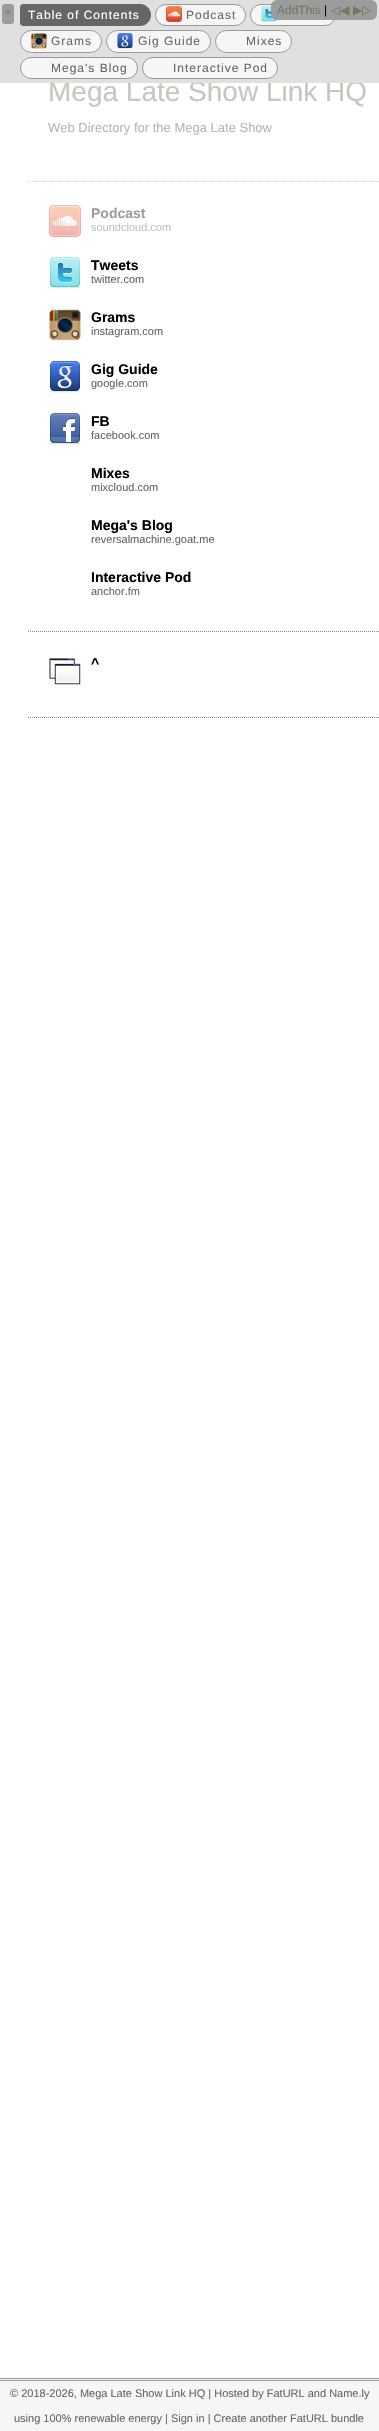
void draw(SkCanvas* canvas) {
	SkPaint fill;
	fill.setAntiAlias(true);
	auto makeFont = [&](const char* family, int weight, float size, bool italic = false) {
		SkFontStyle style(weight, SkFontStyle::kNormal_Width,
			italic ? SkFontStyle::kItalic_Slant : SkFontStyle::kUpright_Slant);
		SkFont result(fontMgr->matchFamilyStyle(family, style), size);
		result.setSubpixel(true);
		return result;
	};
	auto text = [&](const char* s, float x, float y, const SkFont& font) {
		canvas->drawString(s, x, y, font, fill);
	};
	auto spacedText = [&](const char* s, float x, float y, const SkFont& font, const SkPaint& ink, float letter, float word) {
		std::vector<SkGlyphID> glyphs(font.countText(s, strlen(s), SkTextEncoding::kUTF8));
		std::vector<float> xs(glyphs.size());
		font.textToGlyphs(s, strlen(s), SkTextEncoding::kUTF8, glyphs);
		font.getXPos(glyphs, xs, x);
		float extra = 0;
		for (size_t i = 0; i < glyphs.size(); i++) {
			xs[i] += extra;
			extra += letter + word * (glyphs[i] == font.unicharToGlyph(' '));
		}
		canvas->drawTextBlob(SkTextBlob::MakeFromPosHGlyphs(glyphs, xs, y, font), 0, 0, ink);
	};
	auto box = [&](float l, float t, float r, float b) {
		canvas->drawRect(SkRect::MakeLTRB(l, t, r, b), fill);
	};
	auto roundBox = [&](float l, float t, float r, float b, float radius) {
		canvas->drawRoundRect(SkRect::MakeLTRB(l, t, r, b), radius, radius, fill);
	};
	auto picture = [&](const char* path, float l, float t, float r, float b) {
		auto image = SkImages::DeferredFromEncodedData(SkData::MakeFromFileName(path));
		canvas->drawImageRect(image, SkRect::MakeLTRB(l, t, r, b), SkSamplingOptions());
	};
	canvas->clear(0xFFFFFFFF);
	fill.setStyle(SkPaint::kStroke_Style);
	fill.setStrokeWidth(1);
	fill.setColor(0xFFD1D1D1);
	fill.setPathEffect(SkDashPathEffect::Make({{1, 1}}, 0));
	canvas->drawPath(SkPathBuilder().moveTo(28, 181.5f).lineTo(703, 181.5f).detach(), fill);
	fill.setPathEffect(nullptr);
	picture("image4.png", 49, 205, 81, 237);
	picture("image5.png", 50, 257, 80, 289);
	picture("image6.png", 49, 309, 81, 341);
	picture("image7.png", 50, 361, 80, 393);
	picture("image8.png", 50, 413, 80, 445);
	fill.setColor(0xFF888888);
	fill.setPathEffect(SkDashPathEffect::Make({{1, 1}}, 0));
	canvas->drawPath(SkPathBuilder().moveTo(28, 631.5f).lineTo(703, 631.5f).detach(), fill);
	fill.setPathEffect(nullptr);
	picture("image9.png", 49, 658, 81, 685);
	fill.setPathEffect(SkDashPathEffect::Make({{1, 1}}, 0));
	canvas->drawPath(SkPathBuilder().moveTo(28, 717.5f).lineTo(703, 717.5f).detach(), fill);
	fill.setPathEffect(nullptr);
	fill.setStyle(SkPaint::kFill_Style);
	fill.setColor(0xFFF6F6F6);
	box(0, 2379, 379, 2431);
	fill.setColor(0xFF999999);
	box(0, 2378, 379, 2379);
	box(0, 2380, 379, 2381);
	auto font1 = makeFont("Liberation Sans", 400, 28);
	fill.setColor(0xFFC3CABD);
	text("Mega Late Show Link HQ", 48, 101, font1);
	fill.setColor(0xFFE0E0E0);
	box(0, 0, 379, 83);
	fill.setColor(0xFFF6F6F6);
	canvas->drawRoundRect(SkRect::MakeLTRB(250.5f, 4.5f, 335.5f, 25.5f), 10.5f, 10.5f, fill);
	fill.setStyle(SkPaint::kStroke_Style);
	fill.setColor(0xFF999999);
	canvas->drawRoundRect(SkRect::MakeLTRB(250.5f, 4.5f, 335.5f, 25.5f), 10.5f, 10.5f, fill);
	picture("image1.png", 261, 6, 277, 22);
	fill.setStyle(SkPaint::kFill_Style);
	fill.setColor(0xF5999999);
	roundBox(271, 0, 377, 20, 6);
	auto font2 = makeFont("DejaVu Sans", 400, 12);
	fill.setColor(0xFF6B7B5B);
	text("▶▷", 353, 14, font2);
	text("◁◀", 331, 14, font2);
	auto font3 = makeFont("Liberation Sans", 400, 12);
	fill.setColor(0xFF060606);
	text("|", 324, 14, font3);
	fill.setColor(0xFF6B7B5B);
	text("AddThis", 277, 14, font3);
	fill.setColor(0xFF9C9C9C);
	roundBox(2, 4, 14, 24, 3);
	fill.setColor(0xFF6B7B5B);
	text("^", 5, 18, font3);
	fill.setColor(0xFFF6F6F6);
	canvas->drawRoundRect(SkRect::MakeLTRB(142.5f, 57.5f, 277.5f, 78.5f), 10.5f, 10.5f, fill);
	fill.setStyle(SkPaint::kStroke_Style);
	fill.setColor(0xFF999999);
	canvas->drawRoundRect(SkRect::MakeLTRB(142.5f, 57.5f, 277.5f, 78.5f), 10.5f, 10.5f, fill);
	fill.setStyle(SkPaint::kFill_Style);
	fill.setColor(0xFF666666);
	spacedText("Interactive Pod", 173, 72, font3, fill, 1, 0);
	fill.setColor(0xFFF6F6F6);
	canvas->drawRoundRect(SkRect::MakeLTRB(20.5f, 57.5f, 137.5f, 78.5f), 10.5f, 10.5f, fill);
	fill.setStyle(SkPaint::kStroke_Style);
	fill.setColor(0xFF999999);
	canvas->drawRoundRect(SkRect::MakeLTRB(20.5f, 57.5f, 137.5f, 78.5f), 10.5f, 10.5f, fill);
	fill.setStyle(SkPaint::kFill_Style);
	fill.setColor(0xFF666666);
	spacedText("Mega's Blog", 51, 72, font3, fill, 1, 0);
	fill.setColor(0xFFF6F6F6);
	canvas->drawRoundRect(SkRect::MakeLTRB(215.5f, 30.5f, 291.5f, 52.5f), 11, 11, fill);
	fill.setStyle(SkPaint::kStroke_Style);
	fill.setColor(0xFF999999);
	canvas->drawRoundRect(SkRect::MakeLTRB(215.5f, 30.5f, 291.5f, 52.5f), 11, 11, fill);
	fill.setStyle(SkPaint::kFill_Style);
	fill.setColor(0xFF666666);
	spacedText("Mixes", 246, 45, font3, fill, 1, 0);
	fill.setColor(0xFFF6F6F6);
	canvas->drawRoundRect(SkRect::MakeLTRB(106.5f, 30.5f, 210.5f, 52.5f), 11, 11, fill);
	fill.setStyle(SkPaint::kStroke_Style);
	fill.setColor(0xFF999999);
	canvas->drawRoundRect(SkRect::MakeLTRB(106.5f, 30.5f, 210.5f, 52.5f), 11, 11, fill);
	fill.setStyle(SkPaint::kFill_Style);
	fill.setColor(0xFF666666);
	spacedText("Gig Guide", 138, 45, font3, fill, 1, 0);
	picture("image3.png", 117, 33, 133, 49);
	fill.setColor(0xFFF6F6F6);
	canvas->drawRoundRect(SkRect::MakeLTRB(20.5f, 30.5f, 101.5f, 52.5f), 11, 11, fill);
	fill.setStyle(SkPaint::kStroke_Style);
	fill.setColor(0xFF999999);
	canvas->drawRoundRect(SkRect::MakeLTRB(20.5f, 30.5f, 101.5f, 52.5f), 11, 11, fill);
	fill.setStyle(SkPaint::kFill_Style);
	fill.setColor(0xFF666666);
	spacedText("Grams", 51, 45, font3, fill, 1, 0);
	picture("image2.png", 31, 33, 47, 49);
	fill.setColor(0xFFF6F6F6);
	canvas->drawRoundRect(SkRect::MakeLTRB(155.5f, 4.5f, 245.5f, 25.5f), 10.5f, 10.5f, fill);
	fill.setStyle(SkPaint::kStroke_Style);
	fill.setColor(0xFF999999);
	canvas->drawRoundRect(SkRect::MakeLTRB(155.5f, 4.5f, 245.5f, 25.5f), 10.5f, 10.5f, fill);
	fill.setStyle(SkPaint::kFill_Style);
	fill.setColor(0xFF666666);
	spacedText("Podcast", 186, 19, font3, fill, 1, 0);
	picture("image0.png", 166, 6, 182, 22);
	canvas->drawPath(SkPathBuilder().moveTo(23, 4.5f).lineTo(140, 4.5f).cubicTo(146, 4.5f, 150.5f, 9, 150.5f, 15).cubicTo(150.5f, 21, 146, 25.5f, 140, 25.5f).lineTo(23, 25.5f).cubicTo(21.5f, 25.5f, 20.5f, 24.5f, 20.5f, 23).lineTo(20.5f, 7).cubicTo(20.5f, 5.5f, 21.5f, 4.5f, 23, 4.5f).close().detach(), fill);
	fill.setStyle(SkPaint::kStroke_Style);
	canvas->drawPath(SkPathBuilder().moveTo(23, 4.5f).lineTo(140, 4.5f).cubicTo(146, 4.5f, 150.5f, 9, 150.5f, 15).cubicTo(150.5f, 21, 146, 25.5f, 140, 25.5f).lineTo(23, 25.5f).cubicTo(21.5f, 25.5f, 20.5f, 24.5f, 20.5f, 23).lineTo(20.5f, 7).cubicTo(20.5f, 5.5f, 21.5f, 4.5f, 23, 4.5f).close().detach(), fill);
	fill.setStyle(SkPaint::kFill_Style);
	fill.setColor(0xFFFFFFFF);
	spacedText("Table of Contents", 28, 19, font3, fill, 1, 0);
	auto font4 = makeFont("Liberation Sans", 400, 13);
	fill.setColor(0xFFB6B6B6);
	text("Web Directory for the Mega Late Show", 48, 132, font4);
	auto font5 = makeFont("Liberation Sans", 700, 14);
	fill.setColor(0xFF9C9C9C);
	text("Podcast", 91, 218, font5);
	auto font6 = makeFont("Liberation Sans", 400, 11);
	fill.setColor(0xFFC3C3C3);
	text("soundcloud.com", 91, 231, font6);
	fill.setColor(0xFF000000);
	text("Tweets", 91, 270, font5);
	fill.setColor(0xFF666666);
	text("twitter.com", 91, 283, font6);
	fill.setColor(0xFF000000);
	text("Grams", 91, 322, font5);
	fill.setColor(0xFF666666);
	text("instagram.com", 91, 335, font6);
	fill.setColor(0xFF000000);
	text("Gig Guide", 91, 374, font5);
	fill.setColor(0xFF666666);
	text("google.com", 91, 387, font6);
	fill.setColor(0xFF000000);
	text("FB", 91, 426, font5);
	fill.setColor(0xFF666666);
	text("facebook.com", 91, 439, font6);
	fill.setColor(0xFF000000);
	text("Mixes", 91, 478, font5);
	fill.setColor(0xFF666666);
	text("mixcloud.com", 91, 491, font6);
	fill.setColor(0xFF000000);
	text("Mega's Blog", 91, 530, font5);
	fill.setColor(0xFF666666);
	text("reversalmachine.goat.me", 91, 543, font6);
	fill.setColor(0xFF000000);
	text("Interactive Pod", 91, 582, font5);
	fill.setColor(0xFF666666);
	text("anchor.fm", 91, 595, font6);
	fill.setColor(0xFF000000);
	text("^", 91, 668, font5);
	fill.setColor(0xFF666666);
	text("© 2018-2026, Mega Late Show Link HQ | Hosted by FatURL and Name.ly", 10, 2397, font6);
	text("using 100% renewable energy | Sign in | Create another FatURL bundle", 14, 2422, font6);
}
